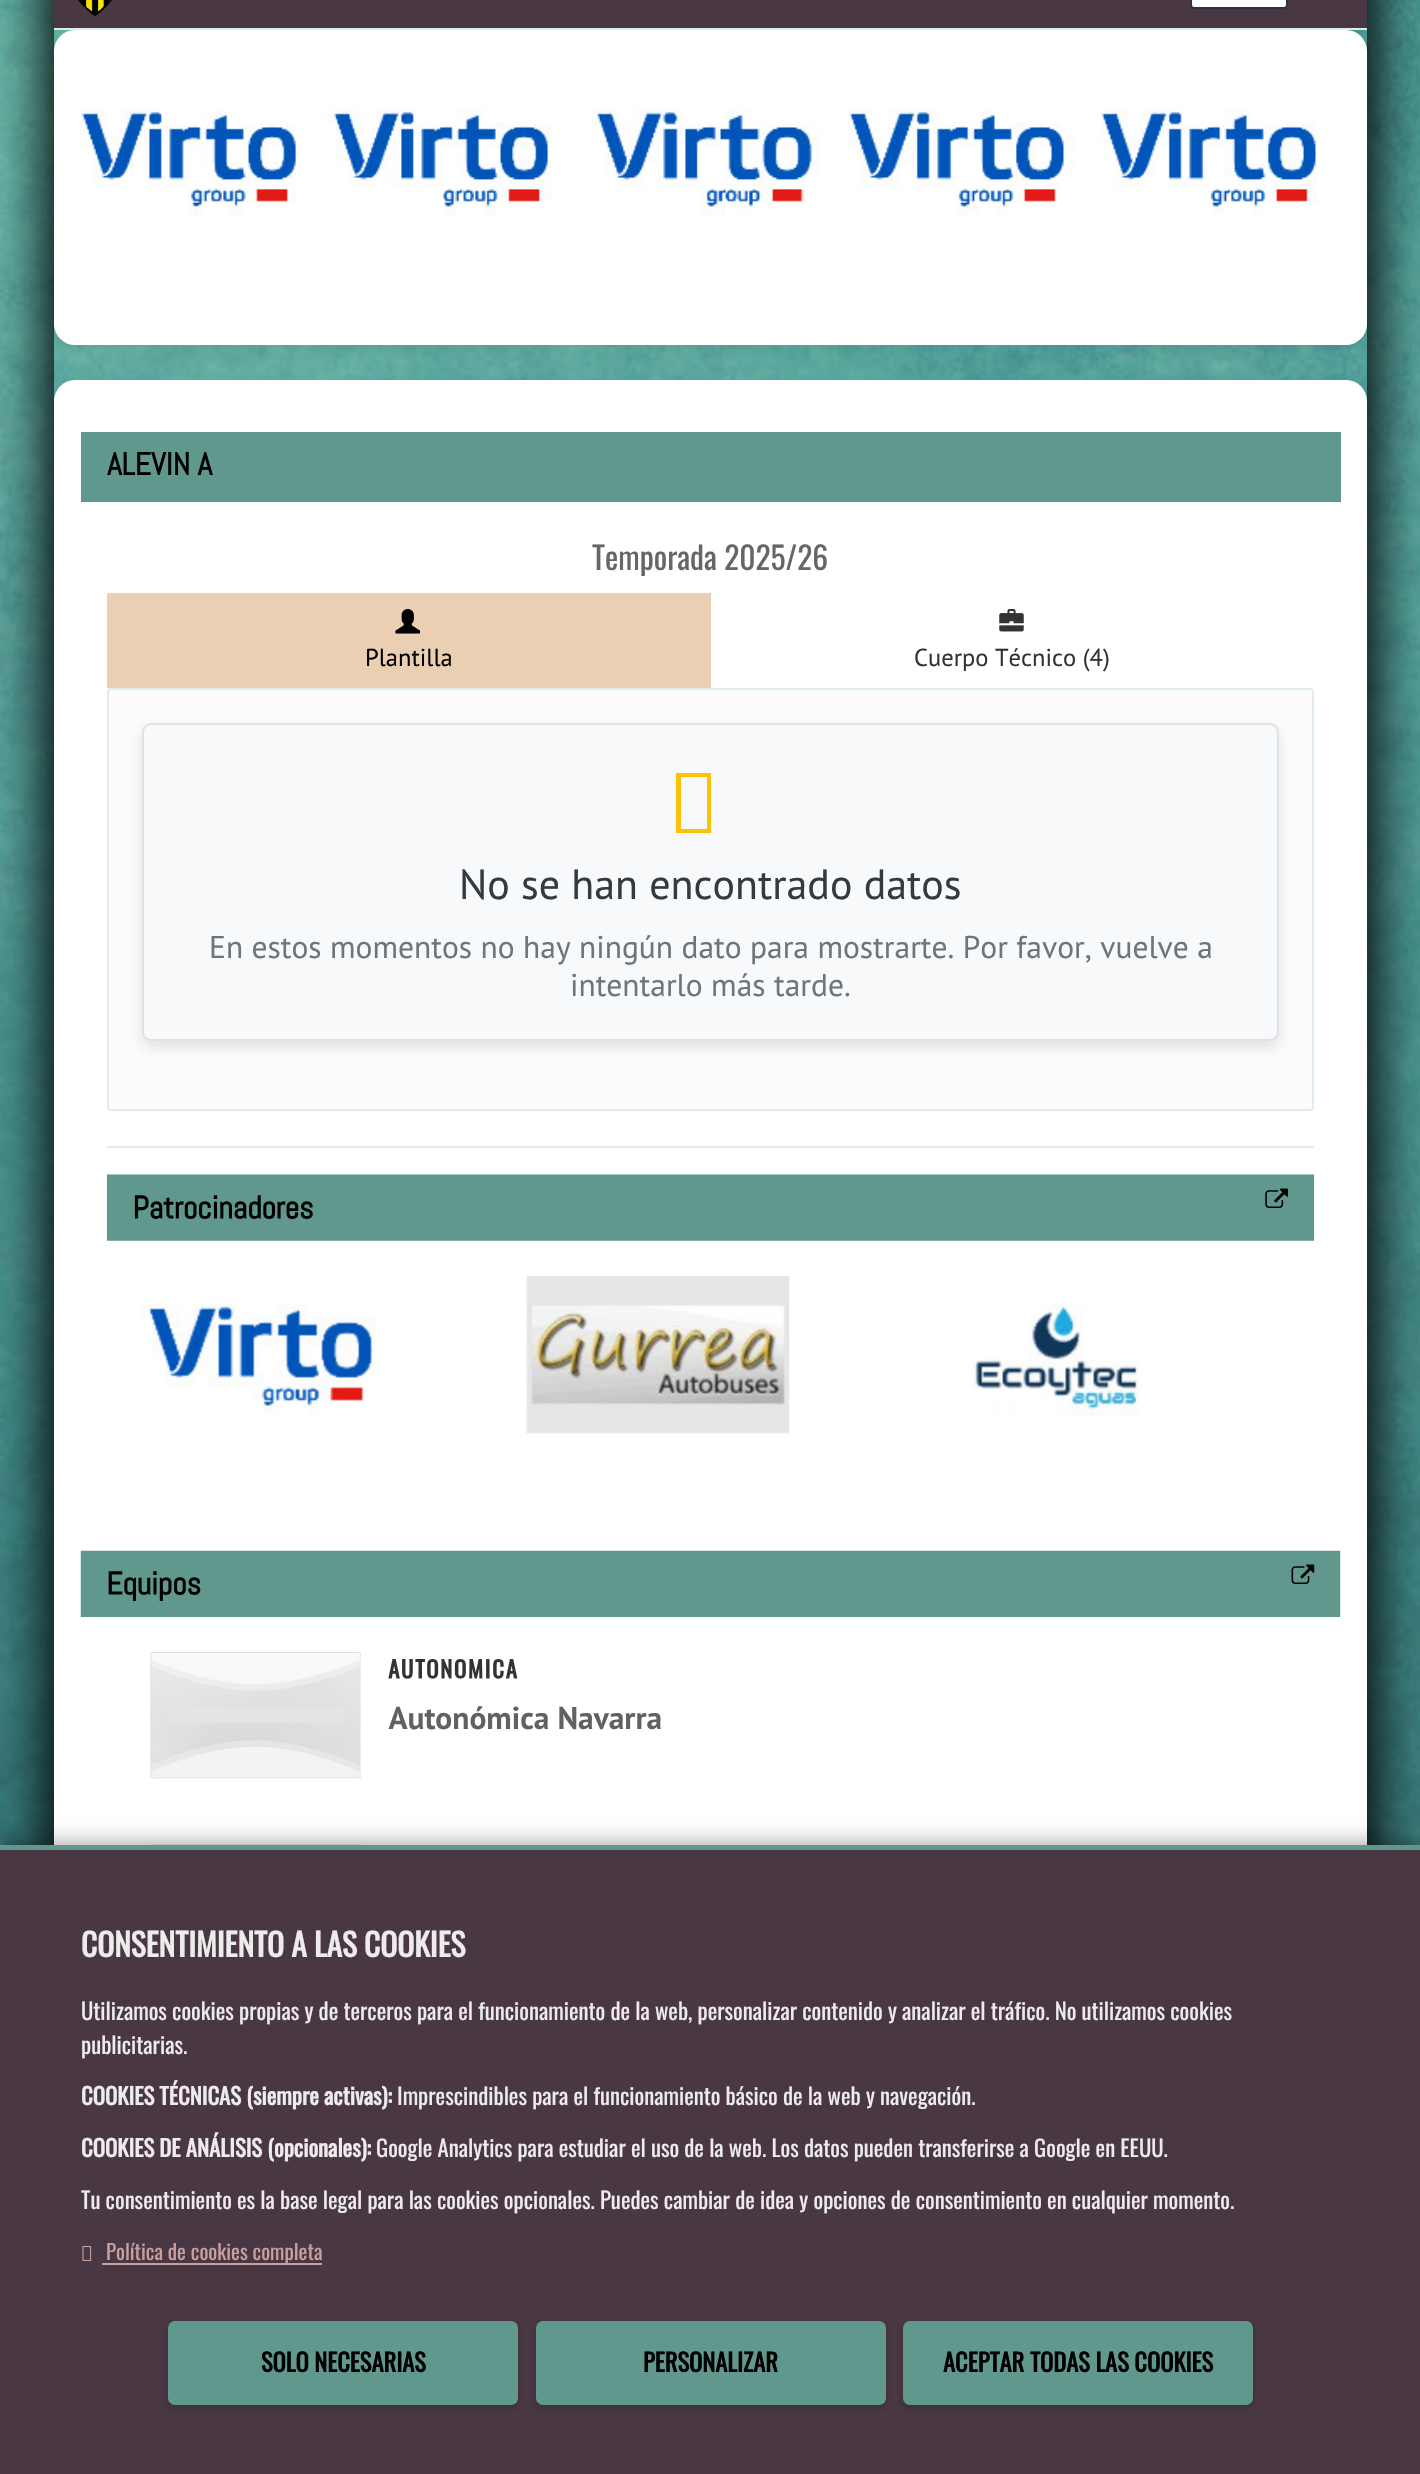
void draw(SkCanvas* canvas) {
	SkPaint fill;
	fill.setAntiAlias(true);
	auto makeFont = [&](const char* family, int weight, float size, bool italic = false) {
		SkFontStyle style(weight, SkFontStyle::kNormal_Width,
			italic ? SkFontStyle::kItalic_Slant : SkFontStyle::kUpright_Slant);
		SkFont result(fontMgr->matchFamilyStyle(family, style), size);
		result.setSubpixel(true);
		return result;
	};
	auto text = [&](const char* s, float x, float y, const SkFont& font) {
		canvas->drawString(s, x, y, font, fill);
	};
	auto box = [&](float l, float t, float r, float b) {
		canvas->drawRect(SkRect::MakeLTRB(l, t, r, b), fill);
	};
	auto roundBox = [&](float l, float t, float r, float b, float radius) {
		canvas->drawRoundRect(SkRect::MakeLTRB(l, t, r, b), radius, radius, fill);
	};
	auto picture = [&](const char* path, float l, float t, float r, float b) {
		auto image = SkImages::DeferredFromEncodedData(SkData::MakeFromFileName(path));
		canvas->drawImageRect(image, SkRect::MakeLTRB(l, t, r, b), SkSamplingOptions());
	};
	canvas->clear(0xFFFFFFFF);
	picture("image0.png", 0, 0, 1420, 1845);
	canvas->save();
	canvas->clipPath(SkPathBuilder(SkPathFillType::kEvenOdd).moveTo(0, 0).lineTo(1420, 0).lineTo(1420, 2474).lineTo(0, 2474).close().moveTo(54, -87).lineTo(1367, -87).lineTo(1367, 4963).lineTo(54, 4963).close().detach(), true);
	fill.setColor(0xFF000000);
	fill.setMaskFilter(SkMaskFilter::MakeBlur(kNormal_SkBlurStyle, 26));
	canvas->drawRect(SkRect::MakeLTRB(46, -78, 1376, 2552), fill);
	fill.setMaskFilter(nullptr);
	canvas->restore();
	fill.setColor(0x14000000);
	fill.setMaskFilter(SkMaskFilter::MakeBlur(kNormal_SkBlurStyle, 9));
	canvas->drawRoundRect(SkRect::MakeLTRB(54, 35, 1367, 350), 21, 21, fill);
	fill.setMaskFilter(nullptr);
	fill.setColor(0xFF493843);
	box(54, 0, 1367, 28);
	fill.setColor(0xFFE0EDED);
	box(54, 28, 1367, 30);
	picture("image1.png", 78, 0, 112, 17);
	fill.setColor(0xFFFFFFFF);
	canvas->drawRoundRect(SkRect::MakeLTRB(1191, -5, 1287, 8), 3, 3, fill);
	fill.setStyle(SkPaint::kStroke_Style);
	fill.setStrokeWidth(2);
	fill.setColor(0xFF333333);
	canvas->drawRoundRect(SkRect::MakeLTRB(1191, -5, 1287, 8), 3, 3, fill);
	fill.setStyle(SkPaint::kFill_Style);
	fill.setColor(0xFFFFFFFF);
	roundBox(54, 30, 1367, 345, 21);
	picture("image2.png", 81, 109, 1318, 216);
	fill.setColor(0x14000000);
	fill.setMaskFilter(SkMaskFilter::MakeBlur(kNormal_SkBlurStyle, 9));
	canvas->drawRoundRect(SkRect::MakeLTRB(54, 385, 1367, 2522), 21, 21, fill);
	fill.setMaskFilter(nullptr);
	fill.setColor(0xFFFFFFFF);
	roundBox(54, 380, 1367, 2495, 21);
	fill.setColor(0xFF61988E);
	box(81, 432, 1341, 502);
	fill.setColor(0xFFEBCFB2);
	box(107, 593, 711, 688);
	picture("image3.png", 395, 609, 420, 634);
	picture("image4.png", 999, 609, 1024, 632);
	fill.setColor(0xFFFCFCFC);
	canvas->drawRoundRect(SkRect::MakeLTRB(108, 689, 1313, 1110), 3, 3, fill);
	fill.setStyle(SkPaint::kStroke_Style);
	fill.setColor(0xFFE0EDED);
	canvas->drawRoundRect(SkRect::MakeLTRB(108, 689, 1313, 1110), 3, 3, fill);
	fill.setStyle(SkPaint::kFill_Style);
	fill.setColor(0x1A000000);
	fill.setMaskFilter(SkMaskFilter::MakeBlur(kNormal_SkBlurStyle, 7));
	canvas->drawRoundRect(SkRect::MakeLTRB(142, 730, 1279, 1048), 9, 9, fill);
	fill.setMaskFilter(nullptr);
	fill.setColor(0xFFF8F9FA);
	canvas->drawRoundRect(SkRect::MakeLTRB(143, 724, 1278, 1040), 8, 8, fill);
	fill.setStyle(SkPaint::kStroke_Style);
	fill.setColor(0xFFDEE2E6);
	canvas->drawRoundRect(SkRect::MakeLTRB(143, 724, 1278, 1040), 8, 8, fill);
	fill.setStyle(SkPaint::kFill_Style);
	fill.setColor(0xFFFFC107);
	canvas->drawPath(SkPathBuilder().moveTo(676, 833).lineTo(676, 773).lineTo(711, 773).lineTo(711, 833).close().moveTo(681, 829).lineTo(707, 829).lineTo(707, 777).lineTo(681, 777).close().detach(), fill);
	fill.setColor(0xFFE0EDED);
	box(107, 1146, 1314, 1148);
	picture("image5.png", 106, 1174, 1315, 1434);
	picture("image6.png", 80, 1550, 1341, 1845);
	fill.setColor(0x4D000000);
	fill.setMaskFilter(SkMaskFilter::MakeBlur(kNormal_SkBlurStyle, 9));
	canvas->drawRect(SkRect::MakeLTRB(0, 1841, 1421, 2471), fill);
	fill.setMaskFilter(nullptr);
	fill.setColor(0xFF493843);
	box(0, 1850, 1420, 2474);
	fill.setColor(0xFF61988E);
	box(0, 1845, 1420, 1850);
	picture("image7.png", 82, 2246, 92, 2261);
	fill.setColor(0xFFC7A09F);
	box(102, 2263, 322, 2265);
	fill.setColor(0x33000000);
	fill.setMaskFilter(SkMaskFilter::MakeBlur(kNormal_SkBlurStyle, 3.5f));
	canvas->drawRoundRect(SkRect::MakeLTRB(168, 2324, 518, 2408), 7, 7, fill);
	fill.setMaskFilter(nullptr);
	fill.setColor(0xFF61988E);
	canvas->drawRoundRect(SkRect::MakeLTRB(170, 2323, 516, 2403), 5, 5, fill);
	fill.setStyle(SkPaint::kStroke_Style);
	fill.setStrokeWidth(4);
	canvas->drawRoundRect(SkRect::MakeLTRB(170, 2323, 516, 2403), 5, 5, fill);
	fill.setStyle(SkPaint::kFill_Style);
	fill.setColor(0x33000000);
	fill.setMaskFilter(SkMaskFilter::MakeBlur(kNormal_SkBlurStyle, 3.5f));
	canvas->drawRoundRect(SkRect::MakeLTRB(536, 2324, 886, 2408), 7, 7, fill);
	fill.setMaskFilter(nullptr);
	fill.setColor(0xFF61988E);
	canvas->drawRoundRect(SkRect::MakeLTRB(538, 2323, 884, 2403), 5, 5, fill);
	fill.setStyle(SkPaint::kStroke_Style);
	canvas->drawRoundRect(SkRect::MakeLTRB(538, 2323, 884, 2403), 5, 5, fill);
	fill.setStyle(SkPaint::kFill_Style);
	fill.setColor(0x33000000);
	fill.setMaskFilter(SkMaskFilter::MakeBlur(kNormal_SkBlurStyle, 3.5f));
	canvas->drawRoundRect(SkRect::MakeLTRB(903, 2324, 1253, 2408), 7, 7, fill);
	fill.setMaskFilter(nullptr);
	fill.setColor(0xFF61988E);
	canvas->drawRoundRect(SkRect::MakeLTRB(905, 2323, 1251, 2403), 5, 5, fill);
	fill.setStyle(SkPaint::kStroke_Style);
	canvas->drawRoundRect(SkRect::MakeLTRB(905, 2323, 1251, 2403), 5, 5, fill);
	auto font1 = makeFont("Abel", 700, 31.5f);
	fill.setStyle(SkPaint::kFill_Style);
	fill.setColor(0xFF000000);
	text("ALEVIN A", 107, 475, font1);
	auto font2 = makeFont("Oswald", 400, 31.5f);
	fill.setColor(0xFF666666);
	text("Temporada 2025/26", 592, 570, font2);
	auto font3 = makeFont("PT Sans", 400, 24.5f);
	fill.setColor(0xFF000000);
	text("Plantilla", 365, 666, font3);
	fill.setColor(0xFF333333);
	text("Cuerpo Técnico (4)", 914, 666, font3);
	auto font4 = makeFont("PT Sans", 400, 42);
	fill.setColor(0xFF343A40);
	text("No se han encontrado datos", 459, 899, font4);
	auto font5 = makeFont("PT Sans", 400, 31.5f);
	fill.setColor(0xFF6C757D);
	text("En estos momentos no hay ningún dato para mostrarte. Por favor, vuelve a", 209, 958, font5);
	text("intentarlo más tarde.", 570, 996, font5);
	auto font6 = makeFont("Oswald", 700, 31.5f);
	fill.setColor(0xFFEDEBEC);
	text("CONSENTIMIENTO A LAS COOKIES", 81, 1957, font6);
	auto font7 = makeFont("Oswald", 400, 22.75f);
	text("Utilizamos cookies propias y de terceros para el funcionamiento de la web, personalizar contenido y analizar el tráfico. No utilizamos cookies", 81, 2020, font7);
	text("publicitarias.", 81, 2054, font7);
	auto font8 = makeFont("Oswald", 700, 22.75f);
	text("COOKIES TÉCNICAS (siempre activas):", 81, 2105, font8);
	text("Imprescindibles para el funcionamiento básico de la web y navegación.", 397, 2105, font7);
	text("COOKIES DE ANÁLISIS (opcionales):", 81, 2157, font8);
	text("Google Analytics para estudiar el uso de la web. Los datos pueden transferirse a Google en EEUU.", 376, 2157, font7);
	text("Tu consentimiento es la base legal para las cookies opcionales. Puedes cambiar de idea y opciones de consentimiento en cualquier momento.", 81, 2209, font7);
	auto font9 = makeFont("Oswald", 400, 21);
	fill.setColor(0xFFC7A09F);
	text("Política de cookies completa", 106, 2260, font9);
	auto font10 = makeFont("Oswald", 700, 24.5f);
	fill.setColor(0xFF000000);
	text("SOLO NECESARIAS", 261, 2372, font10);
	text("PERSONALIZAR", 643, 2372, font10);
	text("ACEPTAR TODAS LAS COOKIES", 943, 2372, font10);
}
